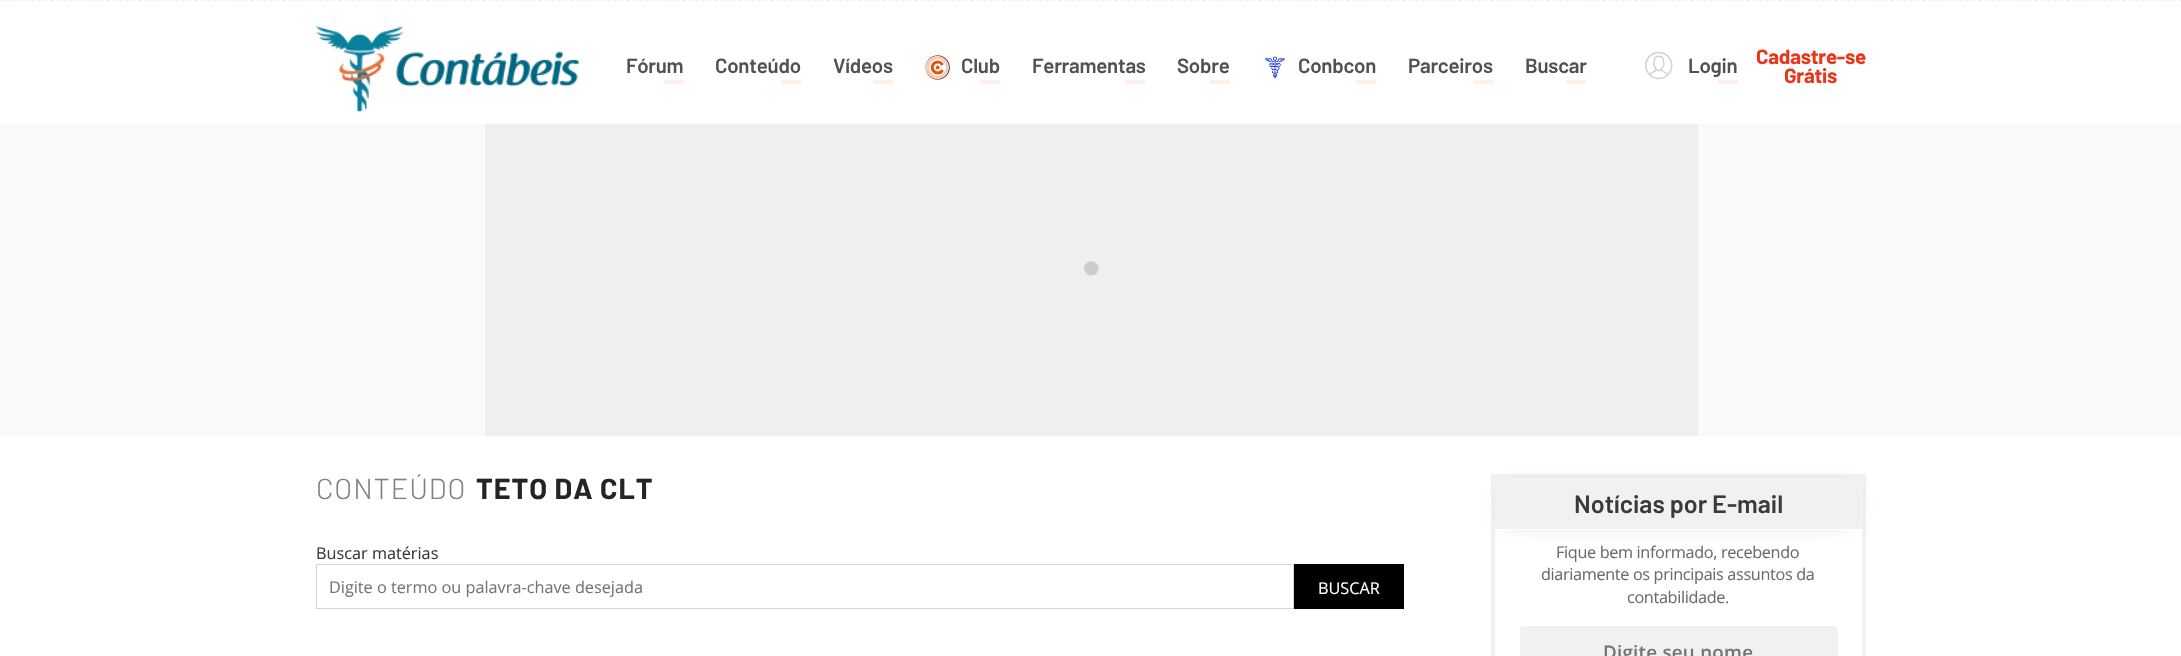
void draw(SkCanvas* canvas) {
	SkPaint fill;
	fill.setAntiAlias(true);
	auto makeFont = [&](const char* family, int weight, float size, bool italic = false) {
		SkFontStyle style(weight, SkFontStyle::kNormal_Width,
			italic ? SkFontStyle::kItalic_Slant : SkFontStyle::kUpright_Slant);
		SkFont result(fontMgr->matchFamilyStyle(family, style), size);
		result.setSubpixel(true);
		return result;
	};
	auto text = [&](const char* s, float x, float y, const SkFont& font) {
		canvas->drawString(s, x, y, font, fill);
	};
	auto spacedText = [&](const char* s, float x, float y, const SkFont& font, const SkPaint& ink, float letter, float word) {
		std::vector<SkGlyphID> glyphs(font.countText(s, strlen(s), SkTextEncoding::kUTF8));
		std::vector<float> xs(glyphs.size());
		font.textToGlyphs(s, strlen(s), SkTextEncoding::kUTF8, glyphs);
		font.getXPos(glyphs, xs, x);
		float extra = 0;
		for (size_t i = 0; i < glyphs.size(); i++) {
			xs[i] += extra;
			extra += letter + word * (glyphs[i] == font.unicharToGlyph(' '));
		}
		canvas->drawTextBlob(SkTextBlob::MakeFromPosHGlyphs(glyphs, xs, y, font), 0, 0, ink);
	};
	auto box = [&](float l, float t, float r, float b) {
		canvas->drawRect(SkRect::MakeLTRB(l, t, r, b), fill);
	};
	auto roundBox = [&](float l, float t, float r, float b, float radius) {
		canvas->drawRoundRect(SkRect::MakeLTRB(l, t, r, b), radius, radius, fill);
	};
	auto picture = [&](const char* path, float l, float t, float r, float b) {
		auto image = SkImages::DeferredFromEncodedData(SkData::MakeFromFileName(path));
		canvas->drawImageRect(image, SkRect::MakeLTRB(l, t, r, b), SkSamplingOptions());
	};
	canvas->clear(0xFFFFFFFF);
	fill.setStyle(SkPaint::kStroke_Style);
	fill.setStrokeWidth(1.2f);
	fill.setColor(0xFFEEEEEE);
	fill.setPathEffect(SkDashPathEffect::Make({{3.75f, 2.51f}}, 0));
	canvas->drawPath(SkPathBuilder().moveTo(0, 0.5f).lineTo(2181, 0.5f).detach(), fill);
	fill.setPathEffect(nullptr);
	picture("image0.png", 316, 26, 579, 112);
	fill.setStyle(SkPaint::kFill_Style);
	fill.setColor(0xFFFFF0EA);
	box(664, 80, 684, 84);
	box(781, 80, 801, 84);
	box(873, 80, 893, 84);
	picture("image1.png", 925, 55, 950, 80);
	box(980, 80, 1000, 84);
	box(1125, 80, 1145, 84);
	box(1210, 80, 1230, 84);
	picture("image2.png", 1265, 56, 1285, 79);
	box(1356, 80, 1376, 84);
	box(1473, 80, 1493, 84);
	box(1566, 80, 1586, 84);
	picture("image3.png", 1645, 51, 1673, 80);
	box(1718, 80, 1738, 84);
	fill.setColor(0xFFFAFAFA);
	box(0, 124, 2181, 436);
	fill.setColor(0xFFEFEFEF);
	box(485, 124, 1698, 436);
	picture("image4.png", 1083, 260, 1099, 276);
	fill.setStyle(SkPaint::kStroke_Style);
	fill.setStrokeWidth(1);
	fill.setColor(0xFFD5D5D5);
	canvas->drawRect(SkRect::MakeLTRB(316.5f, 564.5f, 1293.5f, 608.5f), fill);
	fill.setStyle(SkPaint::kFill_Style);
	fill.setColor(0xFF000000);
	box(1294, 564, 1404, 609);
	fill.setStyle(SkPaint::kStroke_Style);
	fill.setStrokeWidth(4);
	fill.setColor(0xFFF1F1F1);
	canvas->drawRect(SkRect::MakeLTRB(1493, 476, 1864, 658), fill);
	fill.setStyle(SkPaint::kFill_Style);
	fill.setColor(0xFF999999);
	fill.setMaskFilter(SkMaskFilter::MakeBlur(kNormal_SkBlurStyle, 12));
	canvas->drawRect(SkRect::MakeLTRB(1511, 496, 1846, 516), fill);
	fill.setMaskFilter(nullptr);
	fill.setColor(0xFFF1F1F1);
	box(1495, 478, 1863, 529);
	fill.setColor(0xFFFFFFFF);
	box(1495, 529, 1863, 530);
	fill.setColor(0xFFF1F1F1);
	roundBox(1520, 626, 1838, 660, 4);
	auto font1 = makeFont("Barlow", 600, 20.5f);
	fill.setColor(0xFF515151);
	spacedText("Fórum", 626, 73, font1, fill, -0.25f, 0);
	spacedText("Conteúdo", 715, 73, font1, fill, -0.25f, 0);
	spacedText("Vídeos", 833, 73, font1, fill, -0.25f, 0);
	spacedText("Club", 961, 73, font1, fill, -0.25f, 0);
	spacedText("Ferramentas", 1032, 73, font1, fill, -0.25f, 0);
	spacedText("Sobre", 1177, 73, font1, fill, -0.25f, 0);
	spacedText("Conbcon", 1298, 73, font1, fill, -0.25f, 0);
	spacedText("Parceiros", 1408, 73, font1, fill, -0.25f, 0);
	spacedText("Buscar", 1525, 73, font1, fill, -0.25f, 0);
	spacedText("Login", 1688, 73, font1, fill, -0.25f, 0);
	auto font2 = makeFont("Barlow", 700, 20.5f);
	fill.setColor(0xFFE9361B);
	spacedText("Cadastre-se", 1756, 64, font2, fill, -0.25f, 0);
	spacedText("Grátis", 1784, 83, font2, fill, -0.25f, 0);
	canvas->save();
	canvas->clipRect(SkRect::MakeLTRB(316, 474, 1404, 529));
	auto font3 = makeFont("Barlow", 300, 28.75f);
	fill.setColor(0xFF818181);
	spacedText("CONTEÚDO", 316, 499, font3, fill, 0.9f, 0);
	canvas->restore();
	auto font4 = makeFont("Barlow", 700, 28.75f);
	fill.setColor(0xFF242424);
	spacedText("TETO DA CLT", 476, 499, font4, fill, 0.9f, 0);
	auto font5 = makeFont("Open Sans", 400, 16.25f);
	fill.setColor(0xFF3A3A3A);
	text("Buscar matérias", 316, 559, font5);
	fill.setColor(0xFF757575);
	text("Digite o termo ou palavra-chave desejada", 329, 593, font5);
	fill.setColor(0xFFFFFFFF);
	text("BUSCAR", 1318, 594, font5);
	auto font6 = makeFont("Barlow", 600, 25);
	fill.setColor(0xFF3A3A3A);
	text("Notícias por E-mail", 1574, 513, font6);
	fill.setColor(0xFF6B6B6B);
	spacedText("Fique bem informado, recebendo", 1556, 558, font5, fill, -0.35f, 0);
	spacedText("diariamente os principais assuntos da", 1541, 580, font5, fill, -0.35f, 0);
	spacedText("contabilidade.", 1627, 603, font5, fill, -0.35f, 0);
	auto font7 = makeFont("Open Sans", 600, 18.75f);
	fill.setColor(0xFF757575);
	spacedText("Digite seu nome", 1603, 659, font7, fill, 0.25f, 0);
}
